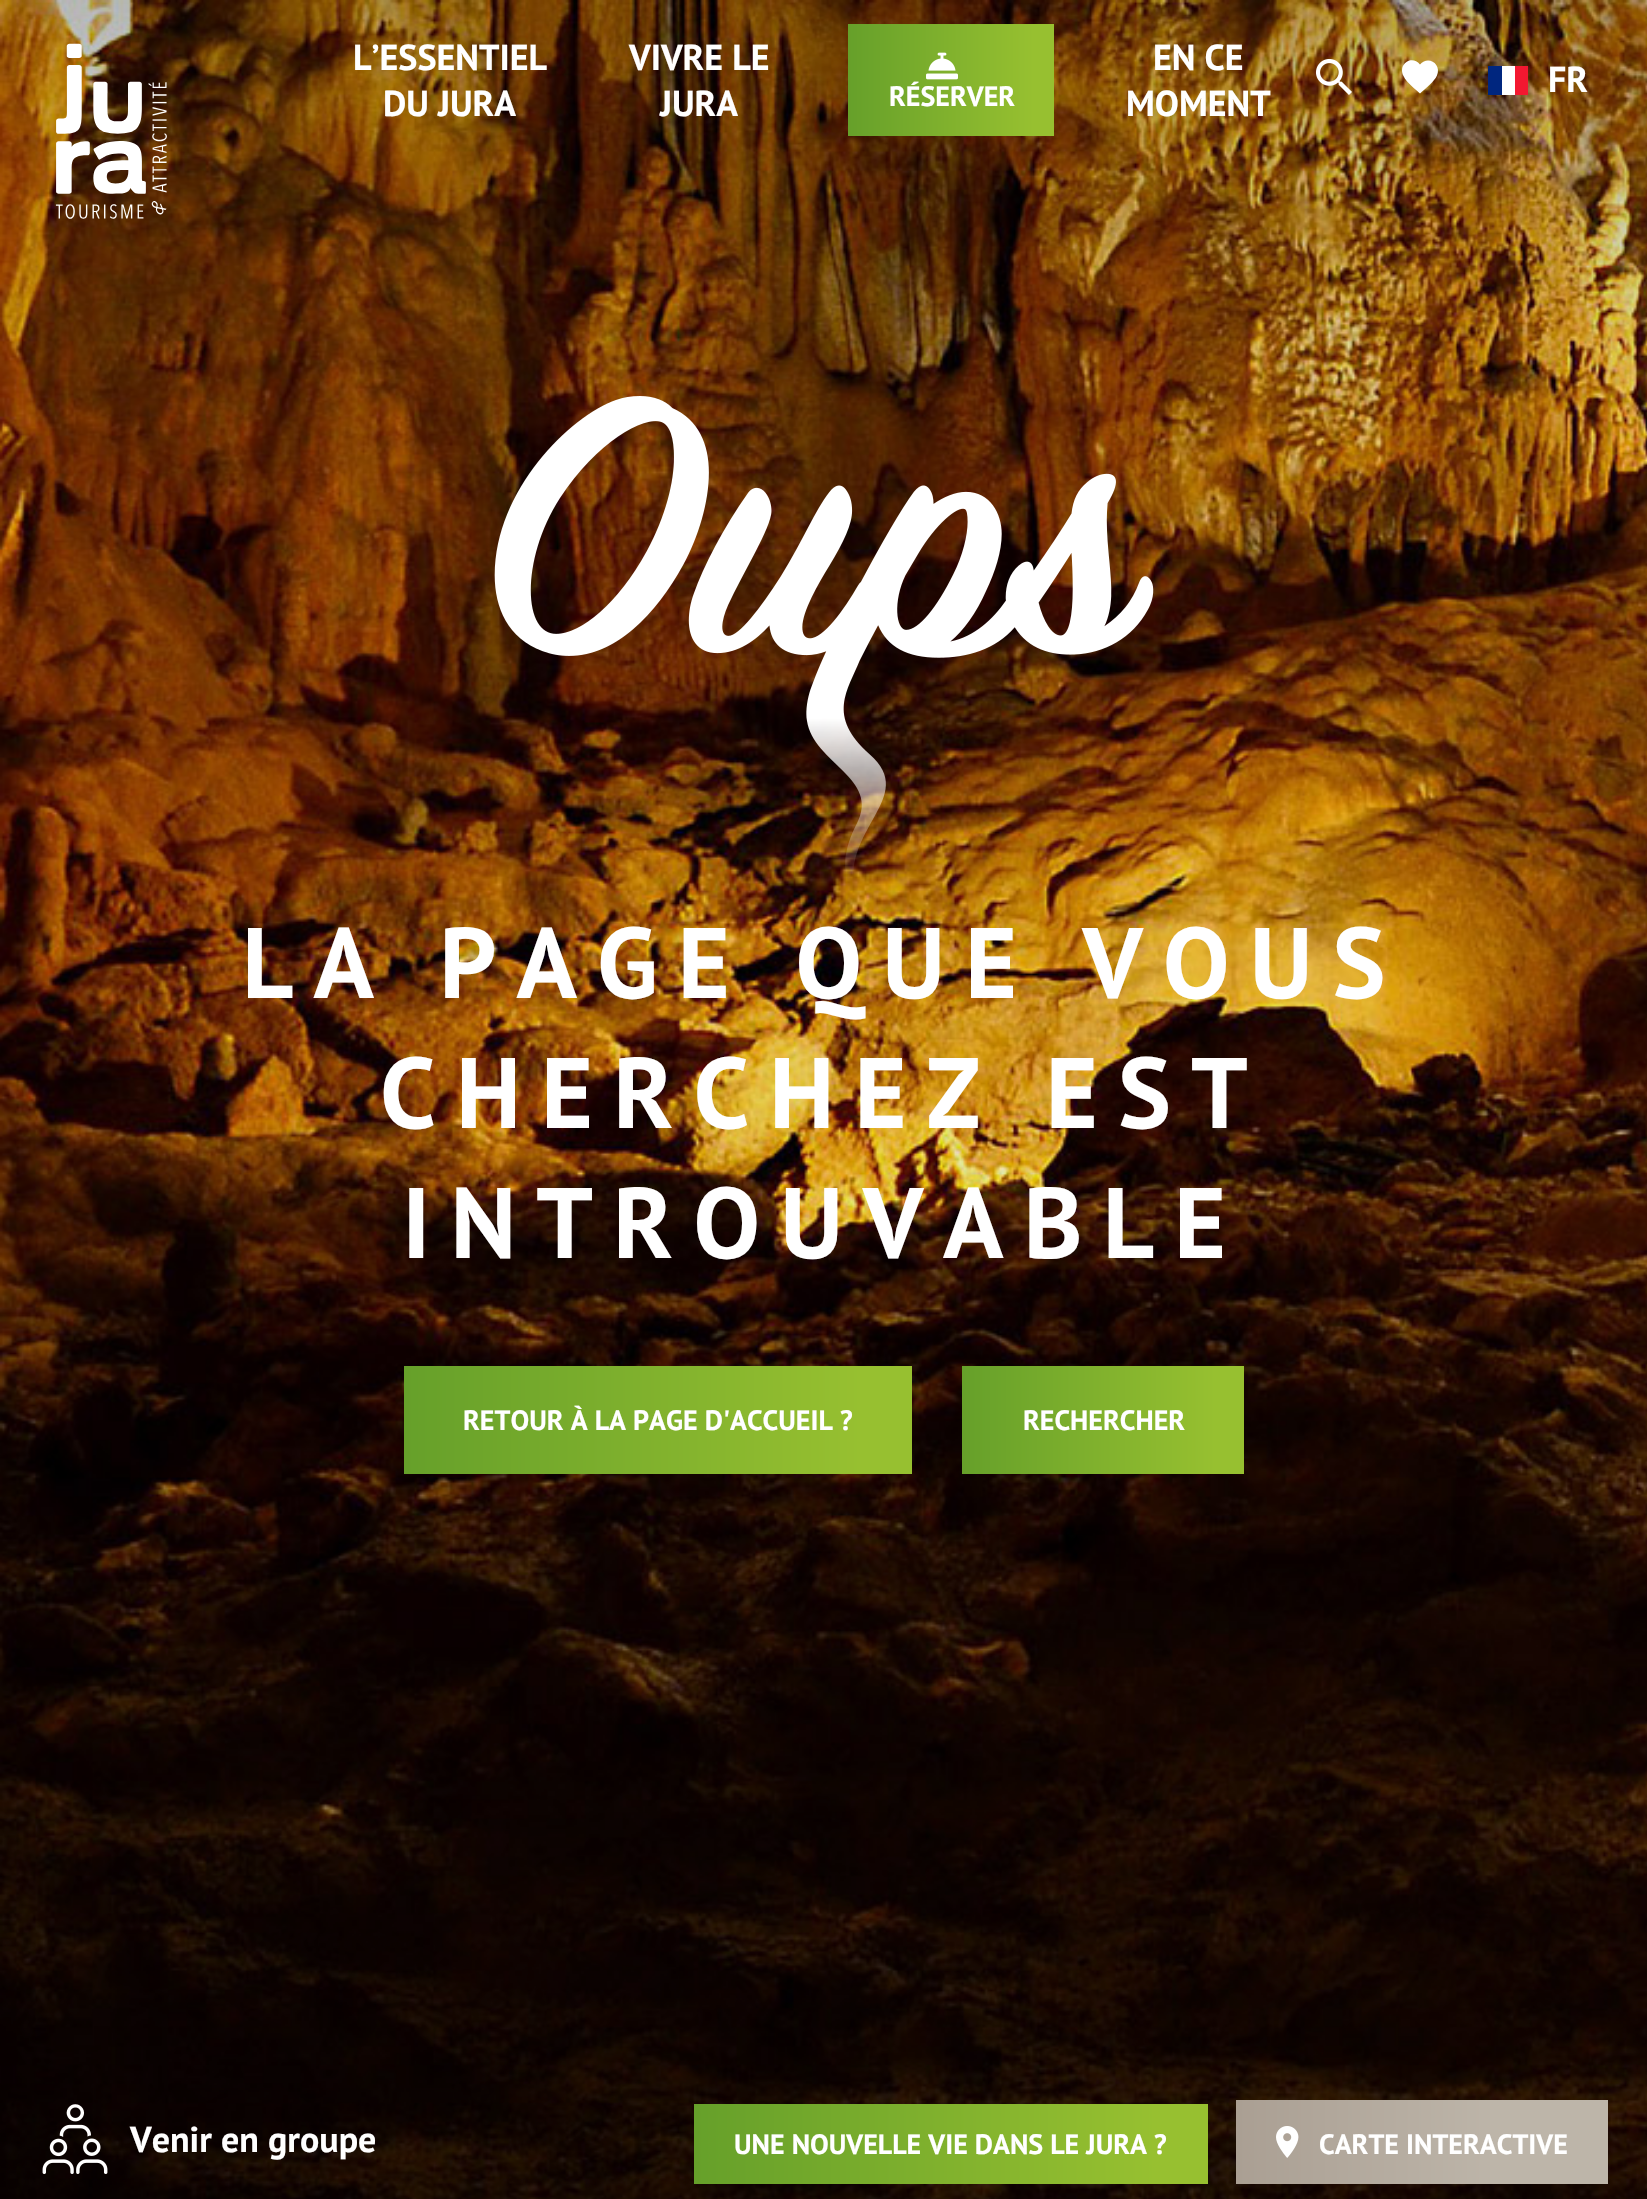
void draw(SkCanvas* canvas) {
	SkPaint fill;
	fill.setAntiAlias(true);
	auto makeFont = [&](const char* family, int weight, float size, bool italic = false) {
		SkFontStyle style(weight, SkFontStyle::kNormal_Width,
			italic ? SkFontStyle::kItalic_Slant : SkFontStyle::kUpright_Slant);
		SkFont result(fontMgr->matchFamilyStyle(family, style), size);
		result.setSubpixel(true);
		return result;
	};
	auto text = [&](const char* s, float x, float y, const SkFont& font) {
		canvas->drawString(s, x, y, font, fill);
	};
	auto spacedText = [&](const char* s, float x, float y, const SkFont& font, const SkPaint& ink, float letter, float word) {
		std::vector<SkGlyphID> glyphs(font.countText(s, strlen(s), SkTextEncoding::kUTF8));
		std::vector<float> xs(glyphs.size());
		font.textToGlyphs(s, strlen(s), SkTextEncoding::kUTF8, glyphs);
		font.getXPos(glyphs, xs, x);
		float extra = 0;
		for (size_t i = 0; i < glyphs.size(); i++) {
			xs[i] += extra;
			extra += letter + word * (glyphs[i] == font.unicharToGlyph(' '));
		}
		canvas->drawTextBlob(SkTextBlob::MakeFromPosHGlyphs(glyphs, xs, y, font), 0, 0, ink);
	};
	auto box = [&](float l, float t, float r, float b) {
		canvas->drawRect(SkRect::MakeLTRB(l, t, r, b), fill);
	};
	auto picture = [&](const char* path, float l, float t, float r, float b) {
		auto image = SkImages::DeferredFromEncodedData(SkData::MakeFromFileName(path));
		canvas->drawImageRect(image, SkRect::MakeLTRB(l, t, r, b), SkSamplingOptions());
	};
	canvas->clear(0xFFFFFFFF);
	picture("image3.png", 0, 0, 1647, 2199);
	picture("image0.png", 55, 43, 167, 219);
	{
		const SkColor colors[] = {0xFF66A02A, 0xFF97C030, 0xFF97C030};
		const float stops[] = {0, 0.45f, 1};
		const SkPoint ends[] = {{848, 80}, {1260, 80}};
		fill.setShader(SkGradientShader::MakeLinear(ends, colors, stops, 3, SkTileMode::kClamp));
		fill.setAlpha(255);
	}
	box(848, 24, 1054, 136);
	picture("image1.png", 926, 52, 958, 80);
	picture("image2.png", 1315, 58, 1352, 95);
	fill.setShader(nullptr);
	fill.setColor(0xFFFFFFFF);
	canvas->drawPath(SkPathBuilder().moveTo(1420, 93.5f).cubicTo(1414.5f, 88.5f, 1406.5f, 82.5f, 1403.5f, 76).cubicTo(1397.5f, 64, 1412, 54.5f, 1420, 64.5f).cubicTo(1428, 55, 1442, 64, 1437, 75.5f).cubicTo(1434, 82, 1425.5f, 88.5f, 1420, 93.5f).close().detach(), fill);
	box(1502, 66, 1515, 95);
	fill.setColor(0xFF00267F);
	box(1488, 66, 1502, 95);
	fill.setColor(0xFFF31830);
	box(1515, 66, 1528, 95);
	picture("image4.png", 494, 396, 1154, 874);
	{
		const SkColor colors[] = {0xFF66A02A, 0xFF97C030, 0xFF97C030};
		const float stops[] = {0, 0.45f, 1};
		const SkPoint ends[] = {{404, 1420}, {1420, 1420}};
		fill.setShader(SkGradientShader::MakeLinear(ends, colors, stops, 3, SkTileMode::kClamp));
		fill.setAlpha(255);
	}
	box(404, 1366, 912, 1474);
	{
		const SkColor colors[] = {0xFF66A02A, 0xFF97C030, 0xFF97C030};
		const float stops[] = {0, 0.45f, 1};
		const SkPoint ends[] = {{962, 1420}, {1526, 1420}};
		fill.setShader(SkGradientShader::MakeLinear(ends, colors, stops, 3, SkTileMode::kClamp));
		fill.setAlpha(255);
	}
	box(962, 1366, 1244, 1474);
	picture("image5.png", 42, 2104, 108, 2174);
	{
		const SkColor colors[] = {0xFF66A02A, 0xFF97C030, 0xFF97C030};
		const float stops[] = {0, 0.45f, 1};
		const SkPoint ends[] = {{694, 2144}, {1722, 2144}};
		fill.setShader(SkGradientShader::MakeLinear(ends, colors, stops, 3, SkTileMode::kClamp));
		fill.setAlpha(255);
	}
	box(694, 2104, 1208, 2184);
	{
		const SkColor colors[] = {0xFFAA9F93, 0xFFBDB5A9, 0xFFBDB5A9};
		const float stops[] = {0, 0.35f, 1};
		const SkPoint ends[] = {{1236, 2142}, {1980, 2142}};
		fill.setShader(SkGradientShader::MakeLinear(ends, colors, stops, 3, SkTileMode::kClamp));
		fill.setAlpha(255);
	}
	box(1236, 2100, 1608, 2184);
	picture("image6.png", 1276, 2126, 1299, 2158);
	auto font1 = makeFont("PT Sans", 700, 36);
	fill.setShader(nullptr);
	fill.setColor(0xFFFFFFFF);
	text("L’ESSENTIEL", 353, 70, font1);
	text("DU JURA", 383, 116, font1);
	text("VIVRE LE", 629, 70, font1);
	text("JURA", 660, 116, font1);
	auto font2 = makeFont("PT Sans", 700, 28);
	text("RÉSERVER", 889, 106, font2);
	text("EN CE", 1153, 70, font1);
	text("MOMENT", 1126, 116, font1);
	text("FR", 1548, 92, font1);
	auto font3 = makeFont("PT Sans", 700, 100);
	spacedText("LA PAGE QUE VOUS", 242, 998, font3, fill, 20, 0);
	spacedText("CHERCHEZ EST", 380, 1128, font3, fill, 20, 0);
	spacedText("INTROUVABLE", 402, 1258, font3, fill, 20, 0);
	text("RETOUR À LA PAGE D'ACCUEIL ?", 463, 1430, font2);
	text("RECHERCHER", 1023, 1430, font2);
	text("Venir en groupe", 130, 2152, font1);
	text("UNE NOUVELLE VIE DANS LE JURA ?", 734, 2154, font2);
	text("CARTE INTERACTIVE", 1319, 2154, font2);
}
